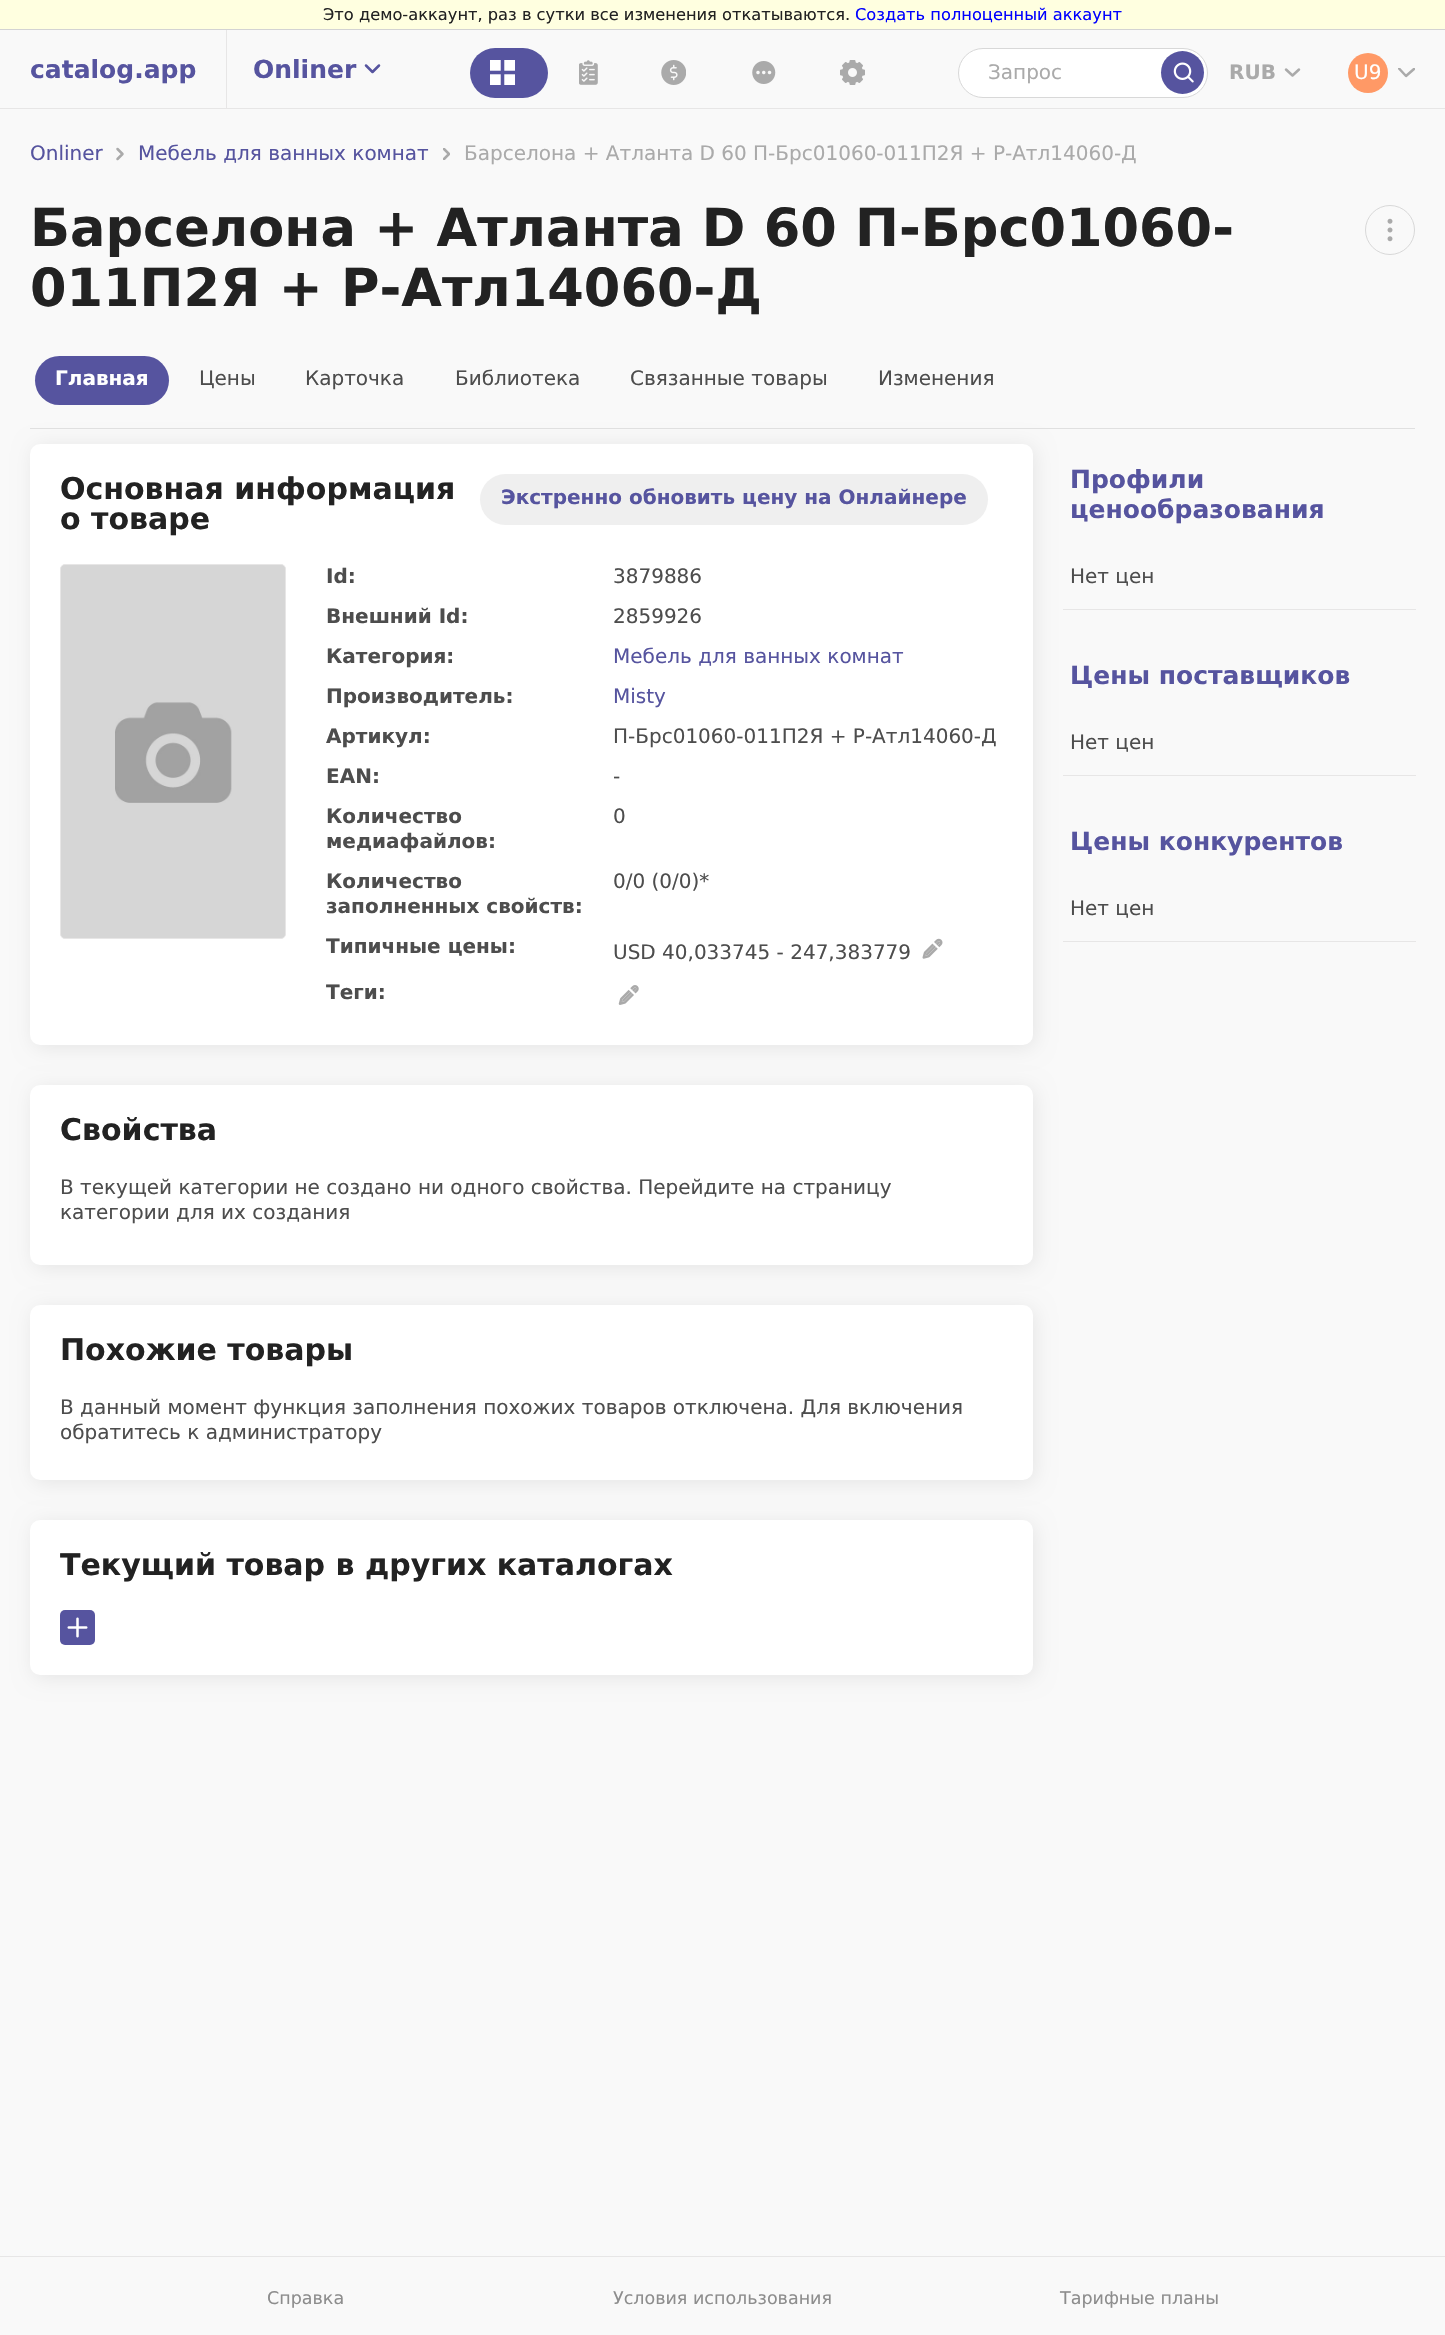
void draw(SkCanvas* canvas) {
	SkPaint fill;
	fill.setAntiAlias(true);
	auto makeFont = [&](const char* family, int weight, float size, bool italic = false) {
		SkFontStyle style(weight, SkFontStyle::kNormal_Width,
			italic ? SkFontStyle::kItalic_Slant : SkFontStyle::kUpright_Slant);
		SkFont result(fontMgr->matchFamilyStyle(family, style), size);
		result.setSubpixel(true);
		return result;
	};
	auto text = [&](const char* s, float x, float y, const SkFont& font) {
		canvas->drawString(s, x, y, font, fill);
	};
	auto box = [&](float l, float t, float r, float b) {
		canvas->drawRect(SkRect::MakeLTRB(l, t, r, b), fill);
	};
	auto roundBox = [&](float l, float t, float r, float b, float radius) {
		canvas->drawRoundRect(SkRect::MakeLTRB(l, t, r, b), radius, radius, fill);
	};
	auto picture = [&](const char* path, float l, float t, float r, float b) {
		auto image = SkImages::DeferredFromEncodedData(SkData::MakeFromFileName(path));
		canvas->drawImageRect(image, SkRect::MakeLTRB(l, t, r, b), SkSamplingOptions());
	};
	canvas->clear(0xFFF9F9F9);
	fill.setColor(0xFFFFFFE0);
	box(0, 0, 1445, 29);
	fill.setColor(0xFFD3D3D3);
	box(0, 29, 1445, 30);
	fill.setColor(0xFFE7E6E6);
	box(0, 108, 1445, 109);
	box(226, 30, 227, 109);
	fill.setStyle(SkPaint::kStroke_Style);
	fill.setStrokeWidth(2.5f);
	fill.setStrokeCap(SkPaint::kRound_Cap);
	fill.setStrokeJoin(SkPaint::kRound_Join);
	fill.setColor(0xFF56549F);
	canvas->drawPath(SkPathBuilder().moveTo(366, 65.5f).lineTo(372.5f, 72).lineTo(379, 65.5f).detach(), fill);
	fill.setStyle(SkPaint::kFill_Style);
	roundBox(470, 48, 548, 98, 25);
	picture("image0.png", 490, 60, 515, 85);
	picture("image1.png", 579, 60, 598, 85);
	picture("image2.png", 661, 60, 686, 85);
	picture("image3.png", 752, 61, 776, 84);
	picture("image4.png", 840, 60, 865, 85);
	fill.setColor(0xFFFFFFFF);
	canvas->drawRoundRect(SkRect::MakeLTRB(958.5f, 48.5f, 1207.5f, 97.5f), 24.5f, 24.5f, fill);
	fill.setStyle(SkPaint::kStroke_Style);
	fill.setStrokeWidth(1);
	fill.setStrokeCap(SkPaint::kButt_Cap);
	fill.setStrokeJoin(SkPaint::kMiter_Join);
	fill.setColor(0xFFD8D8D8);
	canvas->drawRoundRect(SkRect::MakeLTRB(958.5f, 48.5f, 1207.5f, 97.5f), 24.5f, 24.5f, fill);
	fill.setStyle(SkPaint::kFill_Style);
	fill.setColor(0xFF56549F);
	canvas->drawCircle(1182.5f, 72.5f, 21.5f, fill);
	picture("image5.png", 1173, 62, 1194, 83);
	fill.setStyle(SkPaint::kStroke_Style);
	fill.setStrokeWidth(2.5f);
	fill.setStrokeCap(SkPaint::kRound_Cap);
	fill.setStrokeJoin(SkPaint::kRound_Join);
	fill.setColor(0xFFAAAAAA);
	canvas->drawPath(SkPathBuilder().moveTo(1286, 69.5f).lineTo(1292.5f, 75.5f).lineTo(1299, 69.5f).detach(), fill);
	canvas->save();
	canvas->clipRect(SkRect::MakeLTRB(1398, 68, 1415, 78));
	canvas->drawPath(SkPathBuilder().moveTo(1399, 68.5f).lineTo(1406, 76).lineTo(1414, 69).detach(), fill);
	canvas->restore();
	fill.setStyle(SkPaint::kFill_Style);
	fill.setColor(0xFFFF9966);
	canvas->drawCircle(1368, 73, 20, fill);
	fill.setStyle(SkPaint::kStroke_Style);
	fill.setColor(0xFFAAAAAA);
	canvas->drawPath(SkPathBuilder().moveTo(117.5f, 159).lineTo(122.5f, 154).lineTo(117.5f, 149).detach(), fill);
	canvas->save();
	canvas->clipRect(SkRect::MakeLTRB(443, 148, 450, 160));
	canvas->drawPath(SkPathBuilder().moveTo(444, 159).lineTo(449, 154).lineTo(444, 149).detach(), fill);
	canvas->restore();
	picture("image6.png", 1387, 218, 1393, 242);
	fill.setStrokeWidth(1);
	fill.setStrokeCap(SkPaint::kButt_Cap);
	fill.setStrokeJoin(SkPaint::kMiter_Join);
	fill.setColor(0xFFD8D8D8);
	canvas->drawCircle(1390, 230, 24.5f, fill);
	fill.setStyle(SkPaint::kFill_Style);
	fill.setColor(0xFF56549F);
	roundBox(35, 356, 169, 405, 24.5f);
	fill.setColor(0x14000000);
	fill.setMaskFilter(SkMaskFilter::MakeBlur(kNormal_SkBlurStyle, 10));
	canvas->drawRoundRect(SkRect::MakeLTRB(33, 446, 1035, 1048), 10, 10, fill);
	fill.setMaskFilter(nullptr);
	fill.setColor(0xFFE0E0E0);
	box(30, 428, 1415, 429);
	fill.setColor(0xFFFFFFFF);
	roundBox(30, 444, 1033, 1045, 10);
	fill.setColor(0xFFEFEFEF);
	roundBox(480, 474, 988, 525, 25.5f);
	fill.setColor(0xFFD6D6D6);
	canvas->drawRoundRect(SkRect::MakeLTRB(60.5f, 564.5f, 285.5f, 938.5f), 4.5f, 4.5f, fill);
	fill.setStyle(SkPaint::kStroke_Style);
	fill.setColor(0xFFE7E6E6);
	canvas->drawRoundRect(SkRect::MakeLTRB(60.5f, 564.5f, 285.5f, 938.5f), 4.5f, 4.5f, fill);
	picture("image7.png", 115, 702, 232, 803);
	picture("image8.png", 922, 938, 943, 959);
	picture("image9.png", 618, 985, 639, 1005);
	fill.setStyle(SkPaint::kFill_Style);
	fill.setColor(0x14000000);
	fill.setMaskFilter(SkMaskFilter::MakeBlur(kNormal_SkBlurStyle, 10));
	canvas->drawRoundRect(SkRect::MakeLTRB(33, 1088, 1035, 1268), 10, 10, fill);
	fill.setMaskFilter(nullptr);
	fill.setColor(0xFFFFFFFF);
	roundBox(30, 1085, 1033, 1265, 10);
	fill.setColor(0x14000000);
	fill.setMaskFilter(SkMaskFilter::MakeBlur(kNormal_SkBlurStyle, 10));
	canvas->drawRoundRect(SkRect::MakeLTRB(33, 1308, 1035, 1483), 10, 10, fill);
	fill.setMaskFilter(nullptr);
	fill.setColor(0xFFFFFFFF);
	roundBox(30, 1305, 1033, 1480, 10);
	fill.setColor(0x14000000);
	fill.setMaskFilter(SkMaskFilter::MakeBlur(kNormal_SkBlurStyle, 10));
	canvas->drawRoundRect(SkRect::MakeLTRB(33, 1523, 1035, 1678), 10, 10, fill);
	fill.setMaskFilter(nullptr);
	fill.setColor(0xFFFFFFFF);
	roundBox(30, 1520, 1033, 1675, 10);
	fill.setColor(0xFF56549F);
	roundBox(60, 1610, 95, 1645, 5);
	picture("image10.png", 67, 1617, 88, 1638);
	fill.setColor(0xFFE7E6E6);
	box(1063, 609, 1416, 610);
	box(1063, 775, 1416, 776);
	box(1063, 941, 1416, 942);
	box(0, 2256, 1445, 2257);
	auto font1 = makeFont("DejaVu Sans", 400, 16.25f);
	fill.setColor(0xFF222222);
	text("Это демо-аккаунт, раз в сутки все изменения откатываются.", 323, 20, font1);
	fill.setColor(0xFF0000FF);
	text("Создать полноценный аккаунт", 855, 20, font1);
	auto font2 = makeFont("DejaVu Sans", 700, 25);
	fill.setColor(0xFF56549F);
	text("catalog.app", 30, 78, font2);
	text("Onliner", 253, 78, font2);
	auto font3 = makeFont("DejaVu Sans", 400, 20);
	fill.setColor(0xFFAAAAAA);
	text("Запрос", 988, 79, font3);
	auto font4 = makeFont("DejaVu Sans", 700, 20);
	text("RUB", 1229, 79, font4);
	fill.setColor(0xFFFFFFFF);
	text("U9", 1354, 79, font3);
	fill.setColor(0xFF56549F);
	text("Onliner", 30, 160, font3);
	text("Мебель для ванных комнат", 138, 160, font3);
	fill.setColor(0xFFAAAAAA);
	text("Барселона + Атланта D 60 П-Брс01060-011П2Я + Р-Атл14060-Д", 464, 160, font3);
	auto font5 = makeFont("DejaVu Sans", 700, 52.5f);
	fill.setColor(0xFF222222);
	text("Барселона + Атланта D 60 П-Брс01060-", 30, 246, font5);
	text("011П2Я + Р-Атл14060-Д", 30, 306, font5);
	fill.setColor(0xFFFFFFFF);
	text("Главная", 55, 385, font4);
	fill.setColor(0xFF4D4D4D);
	text("Цены", 199, 385, font3);
	text("Карточка", 305, 385, font3);
	text("Библиотека", 455, 385, font3);
	text("Связанные товары", 630, 385, font3);
	text("Изменения", 878, 385, font3);
	auto font6 = makeFont("DejaVu Sans", 700, 30);
	fill.setColor(0xFF222222);
	text("Основная информация", 60, 499, font6);
	text("о товаре", 60, 529, font6);
	fill.setColor(0xFF56549F);
	text("Экстренно обновить цену на Онлайнере", 501, 504, font4);
	fill.setColor(0xFF4D4D4D);
	text("Id:", 326, 583, font4);
	text("3879886", 613, 583, font3);
	text("Внешний Id:", 326, 623, font4);
	text("2859926", 613, 623, font3);
	text("Категория:", 326, 663, font4);
	fill.setColor(0xFF56549F);
	text("Мебель для ванных комнат", 613, 663, font3);
	fill.setColor(0xFF4D4D4D);
	text("Производитель:", 326, 703, font4);
	fill.setColor(0xFF56549F);
	text("Misty", 613, 703, font3);
	fill.setColor(0xFF4D4D4D);
	text("Артикул:", 326, 743, font4);
	text("П-Брс01060-011П2Я + Р-Атл14060-Д", 613, 743, font3);
	text("EAN:", 326, 783, font4);
	text("-", 613, 783, font3);
	text("Количество", 326, 823, font4);
	text("медиафайлов:", 326, 848, font4);
	text("0", 613, 823, font3);
	text("Количество", 326, 888, font4);
	text("заполненных свойств:", 326, 913, font4);
	text("0/0 (0/0)*", 613, 888, font3);
	text("Типичные цены:", 326, 953, font4);
	text("USD 40,033745 - 247,383779", 613, 959, font3);
	text("Теги:", 326, 999, font4);
	fill.setColor(0xFF222222);
	text("Свойства", 60, 1140, font6);
	fill.setColor(0xFF4D4D4D);
	text("В текущей категории не создано ни одного свойства. Перейдите на страницу", 60, 1194, font3);
	text("категории для их создания", 60, 1219, font3);
	fill.setColor(0xFF222222);
	text("Похожие товары", 60, 1360, font6);
	fill.setColor(0xFF4D4D4D);
	text("В данный момент функция заполнения похожих товаров отключена. Для включения", 60, 1414, font3);
	text("обратитесь к администратору", 60, 1439, font3);
	fill.setColor(0xFF222222);
	text("Текущий товар в других каталогах", 60, 1575, font6);
	fill.setColor(0xFF56549F);
	text("Профили", 1070, 488, font2);
	text("ценообразования", 1070, 518, font2);
	fill.setColor(0xFF4D4D4D);
	text("Нет цен", 1070, 583, font3);
	fill.setColor(0xFF56549F);
	text("Цены поставщиков", 1070, 684, font2);
	fill.setColor(0xFF4D4D4D);
	text("Нет цен", 1070, 749, font3);
	fill.setColor(0xFF56549F);
	text("Цены конкурентов", 1070, 850, font2);
	fill.setColor(0xFF4D4D4D);
	text("Нет цен", 1070, 915, font3);
	auto font7 = makeFont("DejaVu Sans", 400, 17.5f);
	fill.setColor(0xFF8D8D8D);
	text("Справка", 267, 2304, font7);
	text("Условия использования", 613, 2304, font7);
	text("Тарифные планы", 1060, 2304, font7);
}
